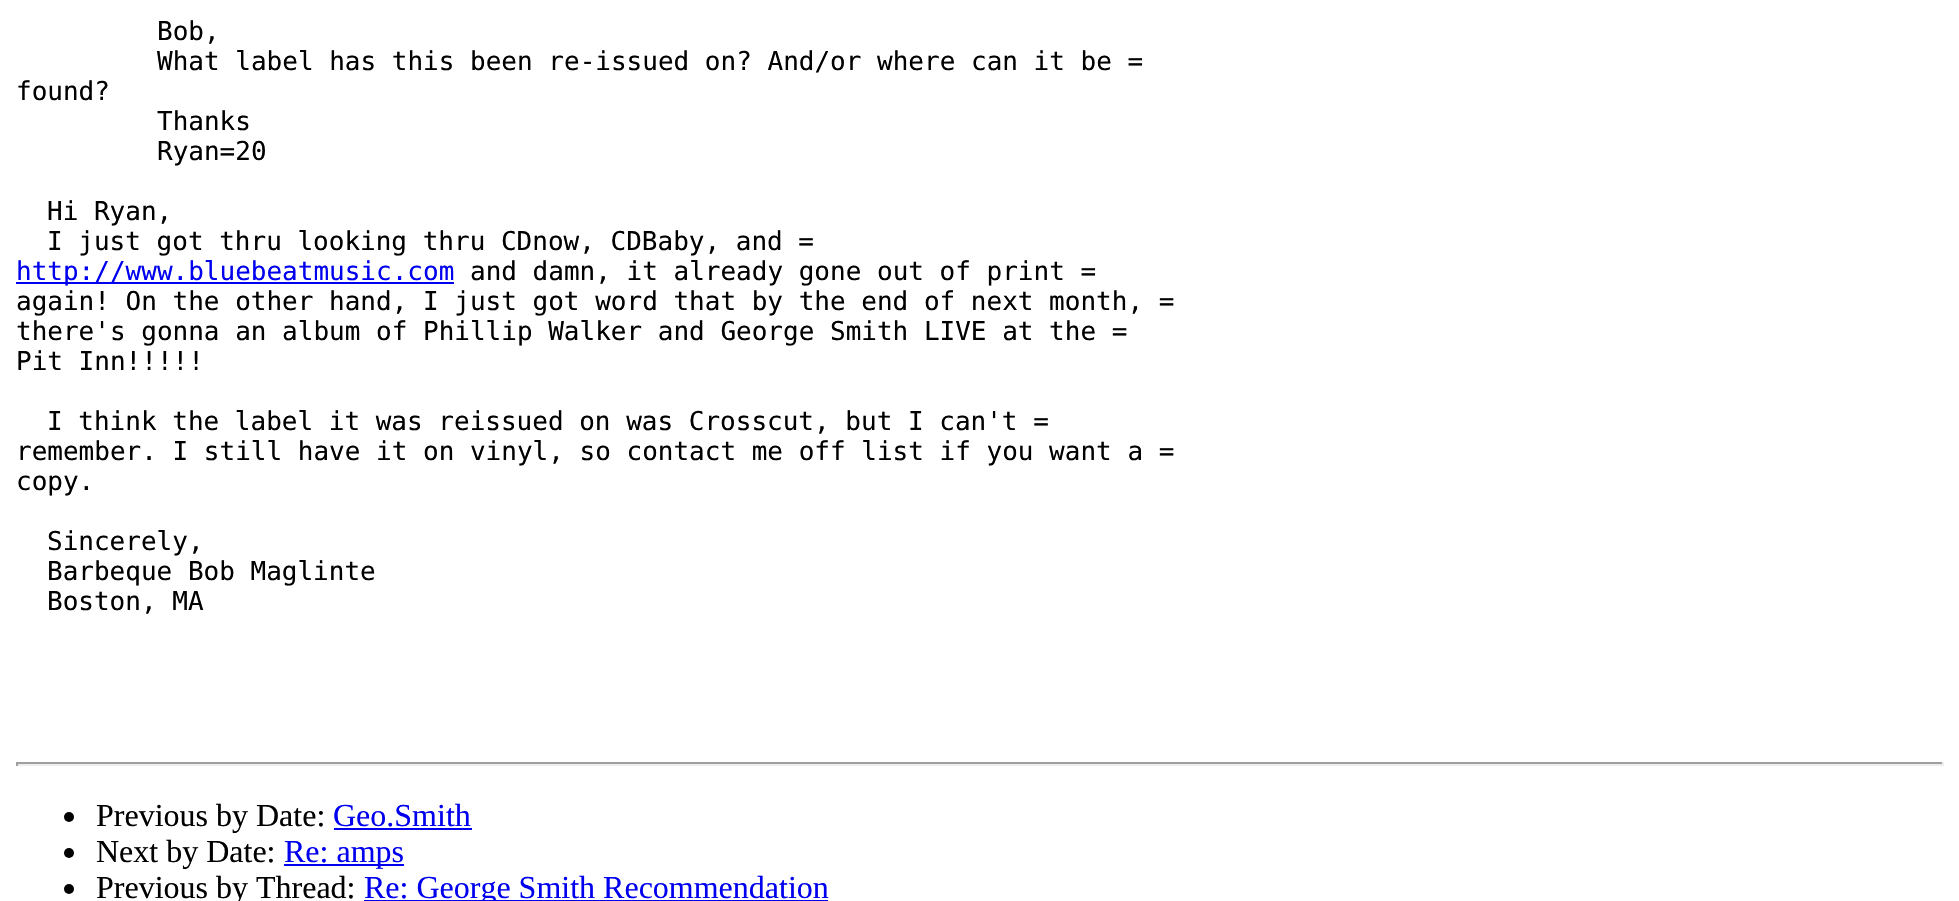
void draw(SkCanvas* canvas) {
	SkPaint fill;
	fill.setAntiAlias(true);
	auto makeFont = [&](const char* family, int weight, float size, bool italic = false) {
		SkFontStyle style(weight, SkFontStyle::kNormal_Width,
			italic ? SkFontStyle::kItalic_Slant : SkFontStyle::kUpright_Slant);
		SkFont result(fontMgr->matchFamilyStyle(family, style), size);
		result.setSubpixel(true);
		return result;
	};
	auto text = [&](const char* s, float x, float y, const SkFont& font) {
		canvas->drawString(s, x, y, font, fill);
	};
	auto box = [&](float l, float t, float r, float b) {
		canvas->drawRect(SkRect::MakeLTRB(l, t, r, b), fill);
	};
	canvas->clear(0xFFFFFFFF);
	fill.setColor(0xFF0000EE);
	box(16, 282, 454, 284);
	fill.setColor(0xFF9F9F9F);
	box(16, 762, 1944, 764);
	fill.setColor(0xFFEEEEEE);
	box(1942, 762, 1944, 766);
	box(16, 764, 1944, 766);
	fill.setColor(0xFF9F9F9F);
	box(16, 762, 18, 766);
	fill.setColor(0xFF000000);
	canvas->drawCircle(69, 817, 5, fill);
	fill.setColor(0xFF0000EE);
	box(334, 828, 472, 830);
	fill.setColor(0xFF000000);
	canvas->drawCircle(69, 853, 5, fill);
	fill.setColor(0xFF0000EE);
	box(284, 864, 404, 866);
	fill.setColor(0xFF000000);
	canvas->drawCircle(69, 889, 5, fill);
	fill.setColor(0xFF0000EE);
	box(364, 900, 828, 901);
	auto font1 = makeFont("DejaVu Sans Mono", 400, 26);
	fill.setColor(0xFF000000);
	text("Bob,", 157, 40, font1);
	text("What label has this been re-issued on? And/or where can it be =", 157, 70, font1);
	text("found?", 16, 100, font1);
	text("Thanks", 157, 130, font1);
	text("Ryan=20", 157, 160, font1);
	text("Hi Ryan,", 47, 220, font1);
	text("I just got thru looking thru CDnow, CDBaby, and =", 47, 250, font1);
	fill.setColor(0xFF0000EE);
	text("http://www.bluebeatmusic.com", 16, 280, font1);
	fill.setColor(0xFF000000);
	text("and damn, it already gone out of print =", 470, 280, font1);
	text("again! On the other hand, I just got word that by the end of next month, =", 16, 310, font1);
	text("there's gonna an album of Phillip Walker and George Smith LIVE at the =", 16, 340, font1);
	text("Pit Inn!!!!!", 16, 370, font1);
	text("I think the label it was reissued on was Crosscut, but I can't =", 47, 430, font1);
	text("remember. I still have it on vinyl, so contact me off list if you want a =", 16, 460, font1);
	text("copy.", 16, 490, font1);
	text("Sincerely,", 47, 550, font1);
	text("Barbeque Bob Maglinte", 47, 580, font1);
	text("Boston, MA", 47, 610, font1);
	auto font2 = makeFont("Liberation Serif", 400, 32);
	text("Previous by Date:", 96, 826, font2);
	fill.setColor(0xFF0000EE);
	text("Geo.Smith", 333, 826, font2);
	fill.setColor(0xFF000000);
	text("Next by Date:", 96, 862, font2);
	fill.setColor(0xFF0000EE);
	text("Re: amps", 284, 862, font2);
	fill.setColor(0xFF000000);
	text("Previous by Thread:", 96, 898, font2);
	fill.setColor(0xFF0000EE);
	text("Re: George Smith Recommendation", 364, 898, font2);
}
